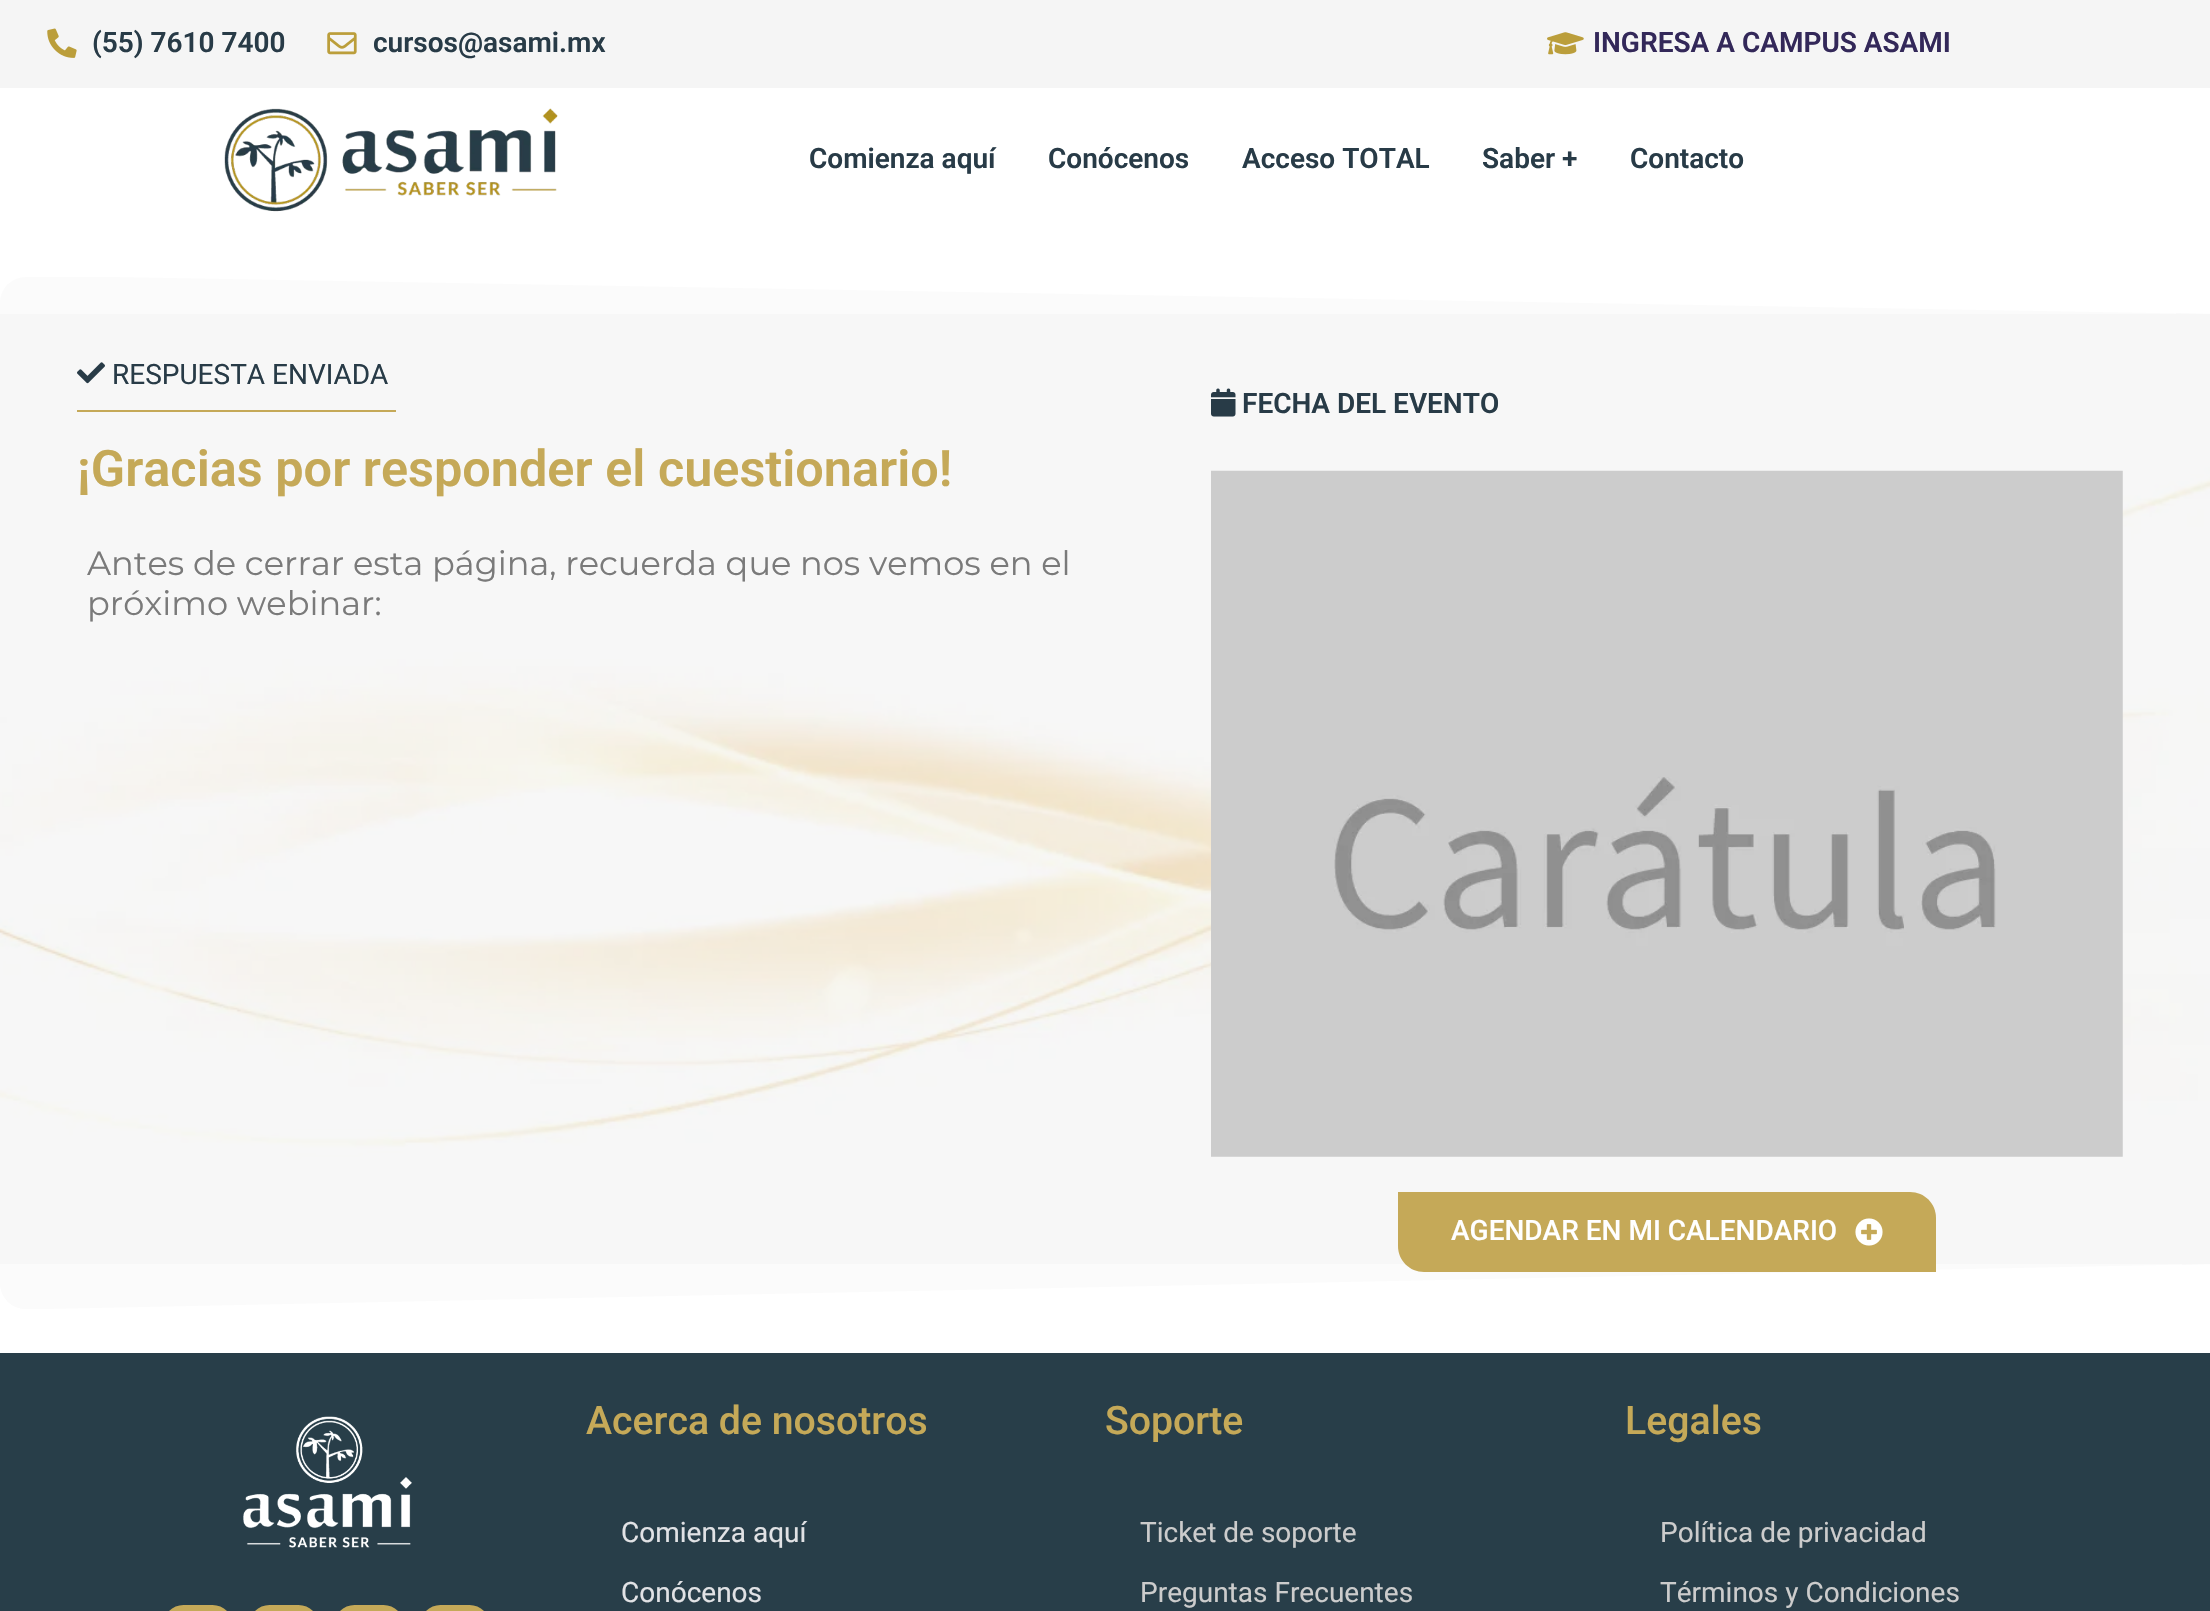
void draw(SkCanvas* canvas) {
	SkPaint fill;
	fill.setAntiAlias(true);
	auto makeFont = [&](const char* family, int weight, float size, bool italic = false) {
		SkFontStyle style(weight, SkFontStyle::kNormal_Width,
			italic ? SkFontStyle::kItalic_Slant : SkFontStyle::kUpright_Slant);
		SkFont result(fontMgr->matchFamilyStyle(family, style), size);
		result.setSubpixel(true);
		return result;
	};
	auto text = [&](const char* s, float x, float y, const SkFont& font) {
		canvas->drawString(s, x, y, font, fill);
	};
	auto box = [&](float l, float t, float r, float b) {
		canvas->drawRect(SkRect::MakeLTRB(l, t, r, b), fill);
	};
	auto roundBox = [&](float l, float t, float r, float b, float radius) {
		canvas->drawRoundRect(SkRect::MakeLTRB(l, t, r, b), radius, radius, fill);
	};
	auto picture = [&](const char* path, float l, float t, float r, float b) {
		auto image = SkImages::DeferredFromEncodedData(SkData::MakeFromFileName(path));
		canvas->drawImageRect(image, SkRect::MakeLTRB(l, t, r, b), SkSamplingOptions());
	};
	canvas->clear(0xFFFFFFFF);
	fill.setColor(0xFFF5F5F5);
	box(0, 0, 2210, 88);
	picture("image0.png", 47, 28, 77, 58);
	picture("image1.png", 327, 32, 357, 55);
	picture("image2.png", 1547, 32, 1584, 55);
	picture("image3.png", 224, 108, 558, 212);
	fill.setColor(0xFFF1F1F1);
	roundBox(0, 277, 2210, 1309, 26);
	picture("image4.png", 0, 277, 2210, 1309);
	fill.setColor(0xFFFFFFFF);
	canvas->drawPath(SkPathBuilder().moveTo(0, 275).lineTo(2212, 275).lineTo(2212, 314).close().detach(), fill);
	fill.setColor(0x80FFFFFF);
	box(0, 277, 2176, 314);
	picture("image5.png", 77, 362, 105, 384);
	fill.setColor(0xFFC5A958);
	box(77, 410, 396, 412);
	picture("image6.png", 1211, 388, 1236, 417);
	picture("image7.png", 1211, 470, 2123, 1157);
	fill.setColor(0xFFFFFFFF);
	canvas->drawPath(SkPathBuilder().moveTo(0, 1310).lineTo(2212, 1310).lineTo(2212, 1264).close().detach(), fill);
	fill.setColor(0x80FFFFFF);
	box(0, 1264, 2182, 1309);
	fill.setColor(0xFFC5A958);
	canvas->drawPath(SkPathBuilder().moveTo(1398, 1192).lineTo(1910, 1192).cubicTo(1924.5f, 1192, 1936, 1203.5f, 1936, 1218).lineTo(1936, 1272).lineTo(1424, 1272).cubicTo(1409.5f, 1272, 1398, 1260.5f, 1398, 1246).close().detach(), fill);
	picture("image8.png", 1855, 1218, 1883, 1246);
	fill.setColor(0xFF283E49);
	box(0, 1353, 2210, 1611);
	picture("image9.png", 243, 1416, 412, 1548);
	fill.setColor(0xFFC5A958);
	roundBox(163, 1605, 233, 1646, 35);
	roundBox(249, 1605, 319, 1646, 35);
	roundBox(334, 1605, 404, 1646, 35);
	roundBox(420, 1605, 490, 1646, 35);
	auto font1 = makeFont("Roboto", 600, 28);
	fill.setColor(0xFF283B47);
	text("(55) 7610 7400", 92, 52, font1);
	text("cursos@asami.mx", 373, 52, font1);
	fill.setColor(0xFF332859);
	text("INGRESA A CAMPUS ASAMI", 1593, 52, font1);
	fill.setColor(0xFF283B47);
	text("Comienza aquí", 809, 168, font1);
	text("Conócenos", 1048, 168, font1);
	text("Acceso TOTAL", 1242, 168, font1);
	text("Saber +", 1482, 168, font1);
	text("Contacto", 1630, 168, font1);
	auto font2 = makeFont("Roboto", 400, 28);
	text("RESPUESTA ENVIADA", 112, 384, font2);
	auto font3 = makeFont("Roboto", 600, 50.4f);
	fill.setColor(0xFFC5A958);
	text("¡Gracias por responder el cuestionario!", 77, 486, font3);
	auto font4 = makeFont("Montserrat", 400, 33.6f);
	fill.setColor(0xFF7A7A7A);
	text("Antes de cerrar esta página, recuerda que nos vemos en el", 87, 575, font4);
	text("próximo webinar:", 87, 615, font4);
	fill.setColor(0xFF283B47);
	text("FECHA DEL EVENTO", 1242, 413, font1);
	auto font5 = makeFont("Roboto", 500, 28);
	fill.setColor(0xFFFFFFFF);
	text("AGENDAR EN MI CALENDARIO", 1451, 1240, font5);
	auto font6 = makeFont("Roboto", 500, 39.25f);
	fill.setColor(0xFFC5A958);
	text("Acerca de nosotros", 586, 1434, font6);
	fill.setColor(0xFFE1E2E5);
	text("Comienza aquí", 621, 1542, font2);
	text("Conócenos", 621, 1602, font2);
	fill.setColor(0xFFC5A958);
	text("Soporte", 1105, 1434, font6);
	fill.setColor(0xFFCCCCCC);
	text("Ticket de soporte", 1140, 1542, font2);
	text("Preguntas Frecuentes", 1140, 1602, font2);
	fill.setColor(0xFFC5A958);
	text("Legales", 1625, 1434, font6);
	fill.setColor(0xFFCCCCCC);
	text("Política de privacidad", 1660, 1542, font2);
	text("Términos y Condiciones", 1660, 1602, font2);
}
